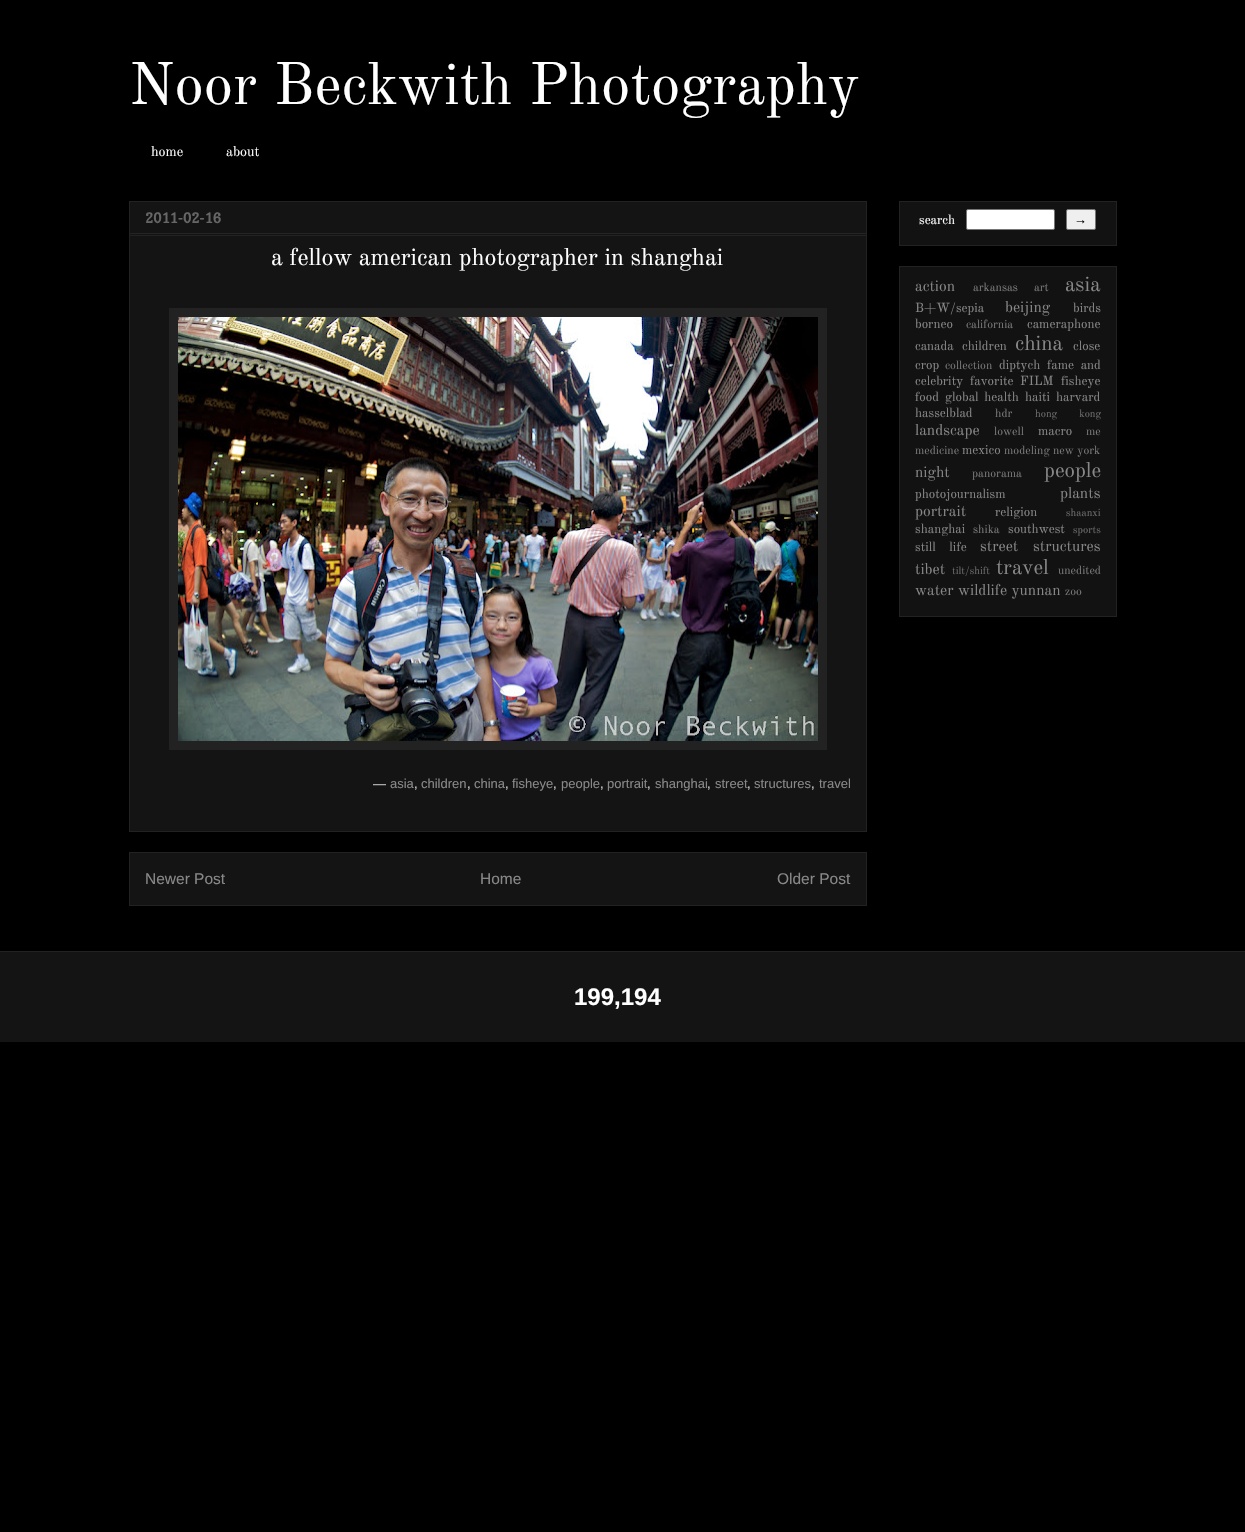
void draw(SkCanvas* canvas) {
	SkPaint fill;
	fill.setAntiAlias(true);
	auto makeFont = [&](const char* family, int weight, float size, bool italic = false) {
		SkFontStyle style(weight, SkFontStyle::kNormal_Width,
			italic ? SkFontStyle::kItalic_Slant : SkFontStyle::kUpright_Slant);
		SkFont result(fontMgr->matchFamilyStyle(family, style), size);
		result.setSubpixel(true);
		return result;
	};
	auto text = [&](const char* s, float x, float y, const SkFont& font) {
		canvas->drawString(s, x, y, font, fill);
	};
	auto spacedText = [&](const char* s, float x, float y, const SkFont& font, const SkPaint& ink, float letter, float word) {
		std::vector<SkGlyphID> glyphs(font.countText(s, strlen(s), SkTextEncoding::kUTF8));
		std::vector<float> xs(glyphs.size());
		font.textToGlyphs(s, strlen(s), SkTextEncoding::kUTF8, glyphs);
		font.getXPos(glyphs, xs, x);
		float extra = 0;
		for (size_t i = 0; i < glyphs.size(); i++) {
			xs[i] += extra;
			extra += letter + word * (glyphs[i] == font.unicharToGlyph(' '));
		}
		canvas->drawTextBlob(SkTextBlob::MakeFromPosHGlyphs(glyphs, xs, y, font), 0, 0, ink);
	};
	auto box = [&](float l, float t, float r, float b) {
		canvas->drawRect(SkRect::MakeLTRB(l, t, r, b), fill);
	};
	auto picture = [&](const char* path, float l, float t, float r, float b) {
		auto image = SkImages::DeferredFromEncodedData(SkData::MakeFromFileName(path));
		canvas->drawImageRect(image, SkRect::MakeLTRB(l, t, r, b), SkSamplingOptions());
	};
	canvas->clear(0xFF000000);
	fill.setColor(0xFF141414);
	canvas->drawRect(SkRect::MakeLTRB(129.5f, 201.5f, 866.5f, 831.5f), fill);
	fill.setStyle(SkPaint::kStroke_Style);
	fill.setStrokeWidth(1);
	fill.setColor(0xFF222222);
	canvas->drawRect(SkRect::MakeLTRB(129.5f, 201.5f, 866.5f, 831.5f), fill);
	fill.setStyle(SkPaint::kFill_Style);
	fill.setColor(0xFF242424);
	box(130, 233, 866, 234);
	fill.setColor(0xFF222222);
	box(130, 235, 866, 236);
	box(169, 308, 827, 750);
	picture("image0.png", 178, 317, 818, 741);
	fill.setColor(0xFF141414);
	canvas->drawRect(SkRect::MakeLTRB(129.5f, 852.5f, 866.5f, 905.5f), fill);
	fill.setStyle(SkPaint::kStroke_Style);
	fill.setColor(0xFF222222);
	canvas->drawRect(SkRect::MakeLTRB(129.5f, 852.5f, 866.5f, 905.5f), fill);
	fill.setStyle(SkPaint::kFill_Style);
	fill.setColor(0xFF121212);
	canvas->drawRect(SkRect::MakeLTRB(899.5f, 201.5f, 1116.5f, 245.5f), fill);
	fill.setStyle(SkPaint::kStroke_Style);
	fill.setColor(0xFF222222);
	canvas->drawRect(SkRect::MakeLTRB(899.5f, 201.5f, 1116.5f, 245.5f), fill);
	fill.setStyle(SkPaint::kFill_Style);
	fill.setColor(0xFFFFFFFF);
	canvas->drawRoundRect(SkRect::MakeLTRB(966.5f, 209.5f, 1054.5f, 229.5f), 1.5f, 1.5f, fill);
	fill.setStyle(SkPaint::kStroke_Style);
	fill.setColor(0xFF767676);
	canvas->drawRoundRect(SkRect::MakeLTRB(966.5f, 209.5f, 1054.5f, 229.5f), 1.5f, 1.5f, fill);
	fill.setStyle(SkPaint::kFill_Style);
	fill.setColor(0xFFEFEFEF);
	canvas->drawRoundRect(SkRect::MakeLTRB(1066.5f, 209.5f, 1095.5f, 229.5f), 1.5f, 1.5f, fill);
	fill.setStyle(SkPaint::kStroke_Style);
	fill.setColor(0xFF767676);
	canvas->drawRoundRect(SkRect::MakeLTRB(1066.5f, 209.5f, 1095.5f, 229.5f), 1.5f, 1.5f, fill);
	fill.setStyle(SkPaint::kFill_Style);
	fill.setColor(0xFF121212);
	canvas->drawRect(SkRect::MakeLTRB(899.5f, 266.5f, 1116.5f, 616.5f), fill);
	fill.setStyle(SkPaint::kStroke_Style);
	fill.setColor(0xFF222222);
	canvas->drawRect(SkRect::MakeLTRB(899.5f, 266.5f, 1116.5f, 616.5f), fill);
	fill.setStyle(SkPaint::kFill_Style);
	fill.setColor(0xFF141414);
	box(0, 952, 1245, 1042);
	fill.setColor(0xFF222222);
	box(0, 951, 1245, 952);
	auto font1 = makeFont("Old Standard TT", 400, 59);
	fill.setColor(0xFFFFFFFF);
	text("Noor Beckwith Photography", 129, 104, font1);
	auto font2 = makeFont("Old Standard TT", 400, 14);
	text("home", 151, 156, font2);
	text("about", 226, 156, font2);
	auto font3 = makeFont("Copse", 700, 14);
	fill.setColor(0xFF666666);
	text("2011-02-16", 145, 223, font3);
	auto font4 = makeFont("Old Standard TT", 400, 24);
	fill.setColor(0xFFFFFFFF);
	text("a fellow american photographer in shanghai", 271, 265, font4);
	auto font5 = makeFont("Liberation Sans", 400, 13);
	fill.setColor(0xFFCCCCCC);
	text("—", 373, 788, font5);
	fill.setColor(0xFF888888);
	text("asia", 390, 788, font5);
	text("children", 421, 788, font5);
	text("china", 474, 788, font5);
	text("fisheye", 512, 788, font5);
	text("people", 561, 788, font5);
	text("portrait", 607, 788, font5);
	text("shanghai", 655, 788, font5);
	text("street", 715, 788, font5);
	text("structures", 754, 788, font5);
	text("travel", 819, 788, font5);
	fill.setColor(0xFFCCCCCC);
	text(",", 414, 788, font5);
	text(",", 467, 788, font5);
	text(",", 505, 788, font5);
	text(",", 553, 788, font5);
	text(",", 600, 788, font5);
	text(",", 647, 788, font5);
	text(",", 707, 788, font5);
	text(",", 747, 788, font5);
	text(",", 811, 788, font5);
	auto font6 = makeFont("Liberation Sans", 400, 15.5f);
	fill.setColor(0xFF888888);
	text("Newer Post", 145, 884, font6);
	text("Home", 480, 884, font6);
	text("Older Post", 777, 884, font6);
	auto font7 = makeFont("Old Standard TT", 400, 13);
	fill.setColor(0xFFFFFFFF);
	text("search", 919, 224, font7);
	fill.setColor(0xFF000000);
	text("→", 1074, 224, font5);
	auto font8 = makeFont("Old Standard TT", 400, 15.5f);
	fill.setColor(0xFF888888);
	text("action", 915, 291, font8);
	auto font9 = makeFont("Old Standard TT", 400, 11.75f);
	fill.setColor(0xFF7C7C7C);
	text("arkansas", 973, 291, font9);
	text("art", 1034, 291, font9);
	auto font10 = makeFont("Old Standard TT", 400, 21);
	fill.setColor(0xFF888888);
	text("asia", 1065, 291, font10);
	text("B+W/sepia", 915, 312, font7);
	text("beijing", 1005, 312, font8);
	text("birds", 1073, 312, font7);
	text("borneo", 915, 328, font7);
	fill.setColor(0xFF7C7C7C);
	text("california", 966, 328, font9);
	fill.setColor(0xFF888888);
	text("cameraphone", 1027, 328, font7);
	text("canada", 915, 350, font7);
	text("children", 962, 350, font7);
	text("china", 1015, 350, font10);
	text("close", 1073, 350, font7);
	text("crop", 915, 369, font7);
	fill.setColor(0xFF7C7C7C);
	text("collection", 945, 369, font9);
	fill.setColor(0xFF888888);
	text("diptych", 999, 369, font7);
	spacedText("fame and", 1047, 369, font7, fill, 0, 3);
	text("celebrity", 915, 385, font7);
	text("favorite", 970, 385, font7);
	text("FILM", 1020, 385, font7);
	text("fisheye", 1061, 385, font7);
	text("food", 915, 401, font7);
	spacedText("global health", 945, 401, font7, fill, 0, 2);
	text("haiti", 1025, 401, font7);
	text("harvard", 1056, 401, font7);
	text("hasselblad", 915, 417, font7);
	fill.setColor(0xFF7C7C7C);
	text("hdr", 995, 417, font9);
	auto font11 = makeFont("Old Standard TT", 400, 10.5f);
	fill.setColor(0xFF707070);
	spacedText("hong kong", 1035, 417, font11, fill, 0, 19);
	fill.setColor(0xFF888888);
	text("landscape", 915, 435, font8);
	fill.setColor(0xFF7C7C7C);
	text("lowell", 994, 435, font9);
	fill.setColor(0xFF888888);
	text("macro", 1038, 435, font7);
	fill.setColor(0xFF7C7C7C);
	text("me", 1086, 435, font9);
	text("medicine", 915, 454, font9);
	fill.setColor(0xFF888888);
	text("mexico", 962, 454, font7);
	fill.setColor(0xFF7C7C7C);
	text("modeling new york", 1004, 454, font9);
	fill.setColor(0xFF888888);
	text("night", 915, 477, font8);
	fill.setColor(0xFF7C7C7C);
	text("panorama", 972, 477, font9);
	fill.setColor(0xFF888888);
	text("people", 1044, 477, font10);
	text("photojournalism", 915, 498, font7);
	text("plants", 1060, 498, font8);
	text("portrait", 915, 516, font8);
	text("religion", 995, 516, font7);
	fill.setColor(0xFF707070);
	text("shaanxi", 1066, 516, font11);
	fill.setColor(0xFF888888);
	text("shanghai", 915, 533, font7);
	fill.setColor(0xFF7C7C7C);
	text("shika", 973, 533, font9);
	fill.setColor(0xFF888888);
	text("southwest", 1008, 533, font7);
	fill.setColor(0xFF707070);
	text("sports", 1073, 533, font11);
	fill.setColor(0xFF888888);
	spacedText("still life", 915, 551, font7, fill, 0, 10);
	text("street", 980, 551, font8);
	text("structures", 1033, 551, font8);
	text("tibet", 915, 574, font8);
	fill.setColor(0xFF707070);
	text("tilt/shift", 952, 574, font11);
	fill.setColor(0xFF888888);
	text("travel", 996, 574, font10);
	fill.setColor(0xFF7C7C7C);
	text("unedited", 1058, 574, font9);
	fill.setColor(0xFF888888);
	text("water wildlife yunnan", 915, 595, font8);
	fill.setColor(0xFF7C7C7C);
	text("zoo", 1065, 595, font9);
	auto font12 = makeFont("Liberation Sans", 700, 24);
	fill.setColor(0xFFFFFFFF);
	text("199,194", 574, 1005, font12);
}
